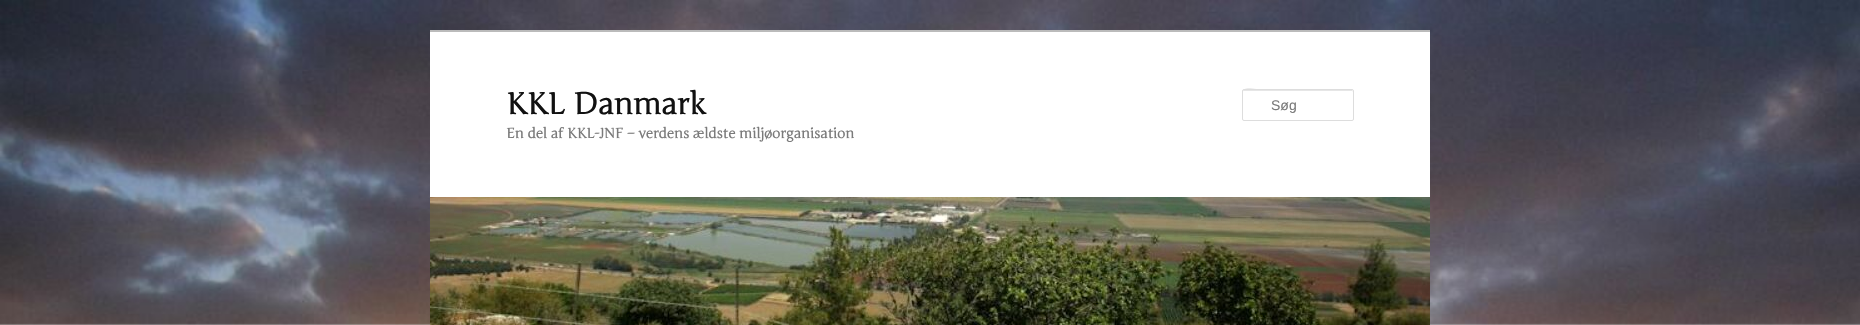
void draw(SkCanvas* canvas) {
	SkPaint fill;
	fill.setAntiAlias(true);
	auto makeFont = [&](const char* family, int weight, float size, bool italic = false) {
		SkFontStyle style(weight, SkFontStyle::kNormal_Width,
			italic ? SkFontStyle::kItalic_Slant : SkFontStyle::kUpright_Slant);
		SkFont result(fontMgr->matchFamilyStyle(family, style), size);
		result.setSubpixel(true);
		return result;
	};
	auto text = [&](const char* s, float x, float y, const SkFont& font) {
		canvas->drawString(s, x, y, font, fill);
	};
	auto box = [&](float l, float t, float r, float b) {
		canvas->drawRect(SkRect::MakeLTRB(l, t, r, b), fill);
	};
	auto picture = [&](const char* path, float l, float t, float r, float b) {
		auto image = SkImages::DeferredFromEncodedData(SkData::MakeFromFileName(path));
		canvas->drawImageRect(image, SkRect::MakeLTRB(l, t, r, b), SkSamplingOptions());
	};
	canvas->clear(0xFFFFFFFF);
	picture("image0.png", 0, 0, 1860, 325);
	fill.setColor(0xFFFFFFFF);
	box(430, 32, 1430, 197);
	fill.setColor(0xFFBBBBBB);
	box(430, 30, 1430, 32);
	fill.setColor(0xFFE6E6E6);
	canvas->drawPath(SkPathBuilder().moveTo(1244, 91).lineTo(1353, 91).lineTo(1353, 92).lineTo(1352, 90).lineTo(1262, 90).cubicTo(1258, 90, 1243, 85, 1243, 92).cubicTo(1243, 91, 1243, 91, 1244, 91).close().detach(), fill);
	fill.setStyle(SkPaint::kStroke_Style);
	fill.setStrokeWidth(1);
	fill.setColor(0xFFDDDDDD);
	canvas->drawRoundRect(SkRect::MakeLTRB(1242.5f, 89.5f, 1353.5f, 120.5f), 1.5f, 1.5f, fill);
	picture("image1.png", 430, 197, 1430, 325);
	auto font1 = makeFont("Junge", 700, 30);
	fill.setStyle(SkPaint::kFill_Style);
	fill.setColor(0xFF111111);
	text("KKL Danmark", 506, 114, font1);
	auto font2 = makeFont("Junge", 700, 14);
	fill.setColor(0xFF7A7A7A);
	text("En del af KKL-JNF – verdens ældste miljøorganisation", 506, 138, font2);
	auto font3 = makeFont("Liberation Sans", 400, 14);
	text("Søg", 1271, 110, font3);
}
